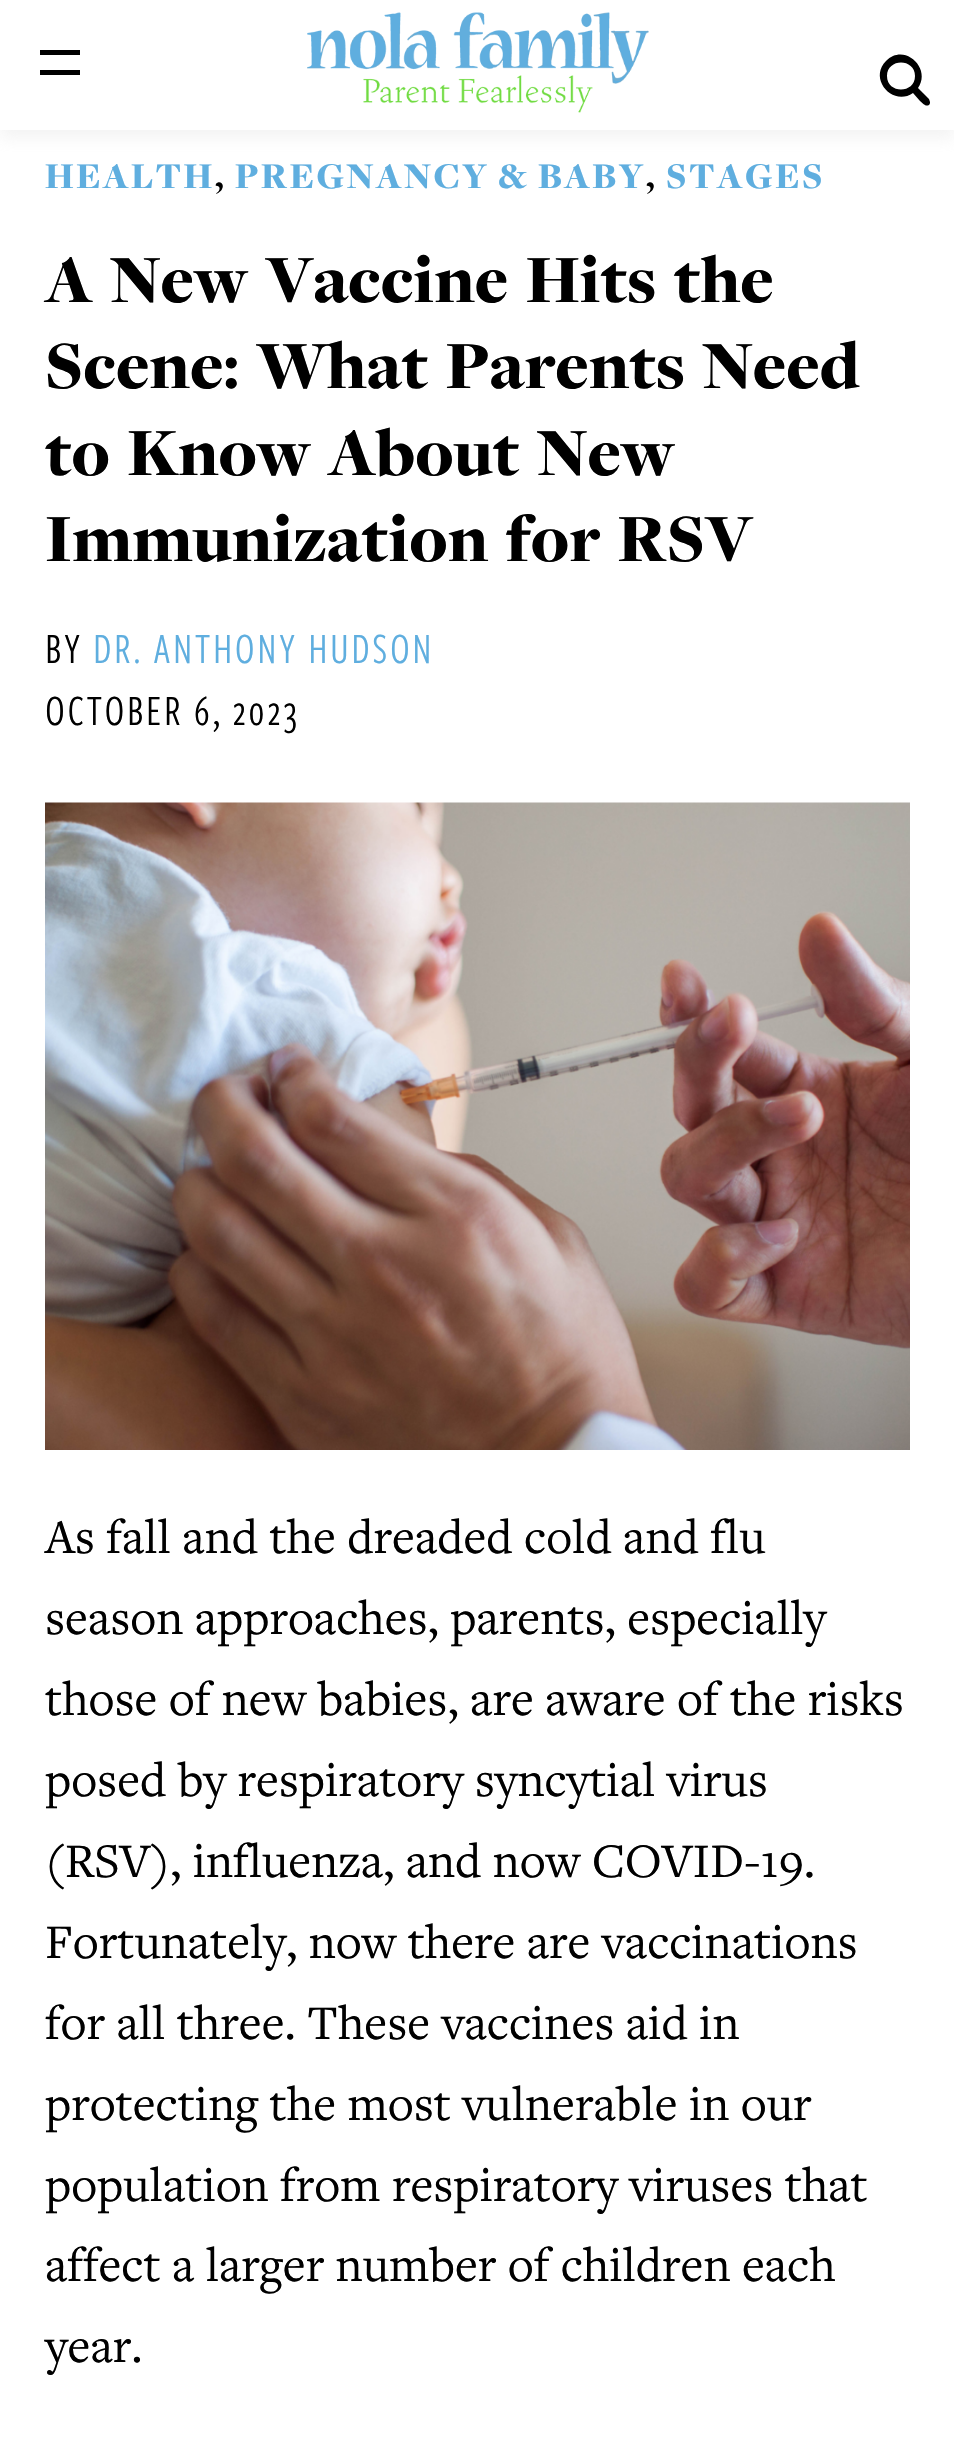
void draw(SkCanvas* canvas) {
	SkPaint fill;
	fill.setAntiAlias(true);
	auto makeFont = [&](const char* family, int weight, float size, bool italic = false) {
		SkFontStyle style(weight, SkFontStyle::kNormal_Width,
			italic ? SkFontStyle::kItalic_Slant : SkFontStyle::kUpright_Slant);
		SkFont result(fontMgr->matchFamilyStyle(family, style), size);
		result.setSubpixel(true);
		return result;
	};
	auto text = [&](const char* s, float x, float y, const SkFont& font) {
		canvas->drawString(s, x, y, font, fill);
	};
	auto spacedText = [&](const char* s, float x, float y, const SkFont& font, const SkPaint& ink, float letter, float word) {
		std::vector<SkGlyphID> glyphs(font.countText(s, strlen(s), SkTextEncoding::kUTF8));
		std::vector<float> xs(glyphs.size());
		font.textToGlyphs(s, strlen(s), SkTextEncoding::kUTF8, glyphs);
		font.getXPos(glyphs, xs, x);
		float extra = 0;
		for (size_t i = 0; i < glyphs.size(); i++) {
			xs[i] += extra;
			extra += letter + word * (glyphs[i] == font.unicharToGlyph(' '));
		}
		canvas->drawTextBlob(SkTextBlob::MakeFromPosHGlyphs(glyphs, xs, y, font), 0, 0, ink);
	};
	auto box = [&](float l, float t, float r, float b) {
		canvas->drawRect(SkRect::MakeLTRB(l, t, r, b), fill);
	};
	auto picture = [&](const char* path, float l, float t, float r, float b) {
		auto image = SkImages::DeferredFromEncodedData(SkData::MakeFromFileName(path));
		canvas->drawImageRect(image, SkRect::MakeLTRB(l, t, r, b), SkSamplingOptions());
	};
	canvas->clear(0xFFFFFFFF);
	canvas->save();
	canvas->clipRect(SkRect::MakeLTRB(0, 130, 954, 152));
	fill.setColor(0xBFEFEFEF);
	fill.setMaskFilter(SkMaskFilter::MakeBlur(kNormal_SkBlurStyle, 7.5f));
	canvas->drawRect(SkRect::MakeLTRB(0, 8, 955, 138), fill);
	fill.setMaskFilter(nullptr);
	canvas->restore();
	fill.setColor(0xFF000000);
	box(40, 50, 80, 55);
	box(40, 70, 80, 75);
	picture("image0.png", 307, 12, 649, 113);
	canvas->drawPath(SkPathBuilder().moveTo(929, 99).lineTo(918, 88).cubicTo(932, 68, 904, 42, 886, 61).cubicTo(868, 79, 893, 107, 913, 93).lineTo(920, 101).cubicTo(923, 103, 925, 107, 929, 105).cubicTo(930, 104, 930, 103, 930, 102).close().moveTo(887, 76).cubicTo(887, 58, 915, 58, 915, 76).cubicTo(915, 94, 887, 94, 887, 76).close().detach(), fill);
	picture("image1.png", 45, 802, 910, 1450);
	auto font1 = makeFont("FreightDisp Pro", 900, 37.5f);
	fill.setColor(0xFF5FAEDF);
	spacedText("HEALTH", 45, 188, font1, fill, 2.5f, 0);
	fill.setColor(0xFF000000);
	spacedText(",", 215, 188, font1, fill, 2.5f, 0);
	fill.setColor(0xFF5FAEDF);
	spacedText("PREGNANCY & BABY", 235, 188, font1, fill, 2.5f, 0);
	fill.setColor(0xFF000000);
	spacedText(",", 646, 188, font1, fill, 2.5f, 0);
	fill.setColor(0xFF5FAEDF);
	spacedText("STAGES", 666, 188, font1, fill, 2.5f, 0);
	auto font2 = makeFont("FreightDisp Pro", 900, 70);
	fill.setColor(0xFF000000);
	spacedText("A New Vaccine Hits the", 45, 302, font2, fill, 0, 5);
	spacedText("Scene: What Parents Need", 45, 388, font2, fill, 0, 5);
	spacedText("to Know About New", 45, 475, font2, fill, 0, 5);
	spacedText("Immunization for RSV", 45, 561, font2, fill, 0, 5);
	auto font3 = makeFont("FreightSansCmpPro", 400, 45);
	spacedText("BY", 45, 663, font3, fill, 2.5f, 0);
	fill.setColor(0xFF5FAEDF);
	spacedText("DR. ANTHONY HUDSON", 93, 663, font3, fill, 2.5f, 0);
	fill.setColor(0xFF000000);
	spacedText("OCTOBER 6, 2023", 45, 725, font3, fill, 2.5f, 0);
	auto font4 = makeFont("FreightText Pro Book", 400, 50);
	text("As fall and the dreaded cold and flu", 45, 1553, font4);
	text("season approaches, parents, especially", 45, 1634, font4);
	text("those of new babies, are aware of the risks", 45, 1715, font4);
	text("posed by respiratory syncytial virus", 45, 1796, font4);
	text("(RSV), influenza, and now COVID-19.", 45, 1877, font4);
	text("Fortunately, now there are vaccinations", 45, 1958, font4);
	text("for all three. These vaccines aid in", 45, 2039, font4);
	text("protecting the most vulnerable in our", 45, 2120, font4);
	text("population from respiratory viruses that", 45, 2201, font4);
	text("affect a larger number of children each", 45, 2281, font4);
	text("year.", 45, 2362, font4);
}
